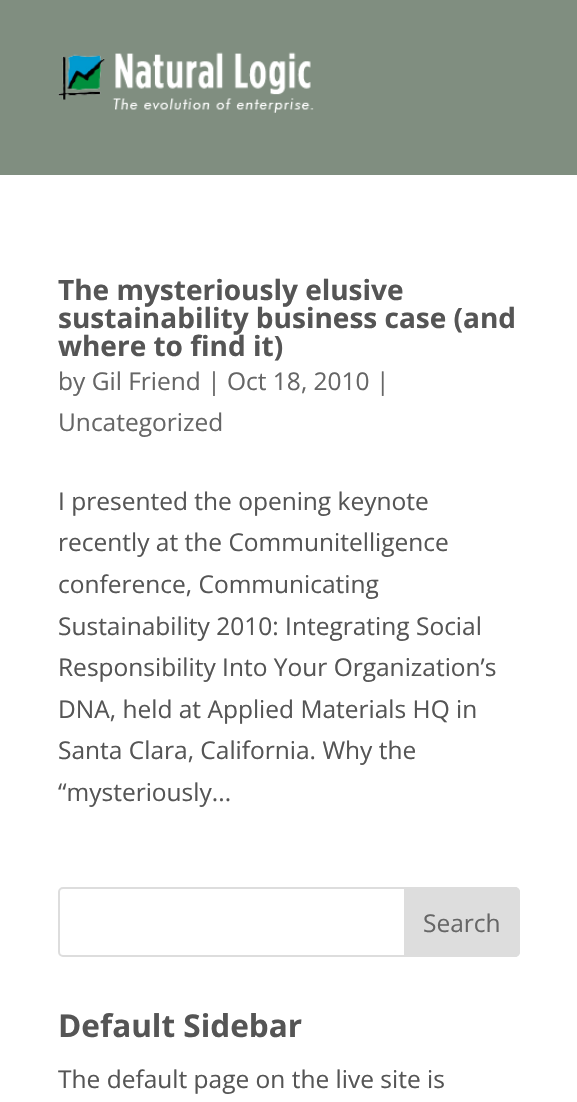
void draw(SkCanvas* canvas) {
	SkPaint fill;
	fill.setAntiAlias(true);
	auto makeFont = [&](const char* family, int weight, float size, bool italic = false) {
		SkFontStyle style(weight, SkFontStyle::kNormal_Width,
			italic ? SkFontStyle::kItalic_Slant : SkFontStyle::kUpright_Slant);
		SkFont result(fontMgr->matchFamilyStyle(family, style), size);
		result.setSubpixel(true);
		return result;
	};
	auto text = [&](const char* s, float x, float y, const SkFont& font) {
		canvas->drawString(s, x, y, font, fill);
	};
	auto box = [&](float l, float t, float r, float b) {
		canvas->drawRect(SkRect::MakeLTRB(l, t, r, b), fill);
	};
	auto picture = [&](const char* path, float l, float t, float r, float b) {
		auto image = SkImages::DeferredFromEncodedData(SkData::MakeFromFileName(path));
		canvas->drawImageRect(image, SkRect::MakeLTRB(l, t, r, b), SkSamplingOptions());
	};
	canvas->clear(0xFFFFFFFF);
	fill.setColor(0xFF808E80);
	box(0, 0, 577, 175);
	picture("image0.png", 58, 52, 314, 113);
	fill.setStyle(SkPaint::kStroke_Style);
	fill.setStrokeWidth(2);
	fill.setColor(0xFFDDDDDD);
	canvas->drawRoundRect(SkRect::MakeLTRB(59, 888, 519, 956), 4, 4, fill);
	fill.setStyle(SkPaint::kFill_Style);
	canvas->drawPath(SkPathBuilder().moveTo(405, 888).lineTo(515, 888).cubicTo(517, 888, 519, 890, 519, 892).lineTo(519, 952).cubicTo(519, 954, 517, 956, 515, 956).lineTo(405, 956).close().detach(), fill);
	fill.setStyle(SkPaint::kStroke_Style);
	canvas->drawPath(SkPathBuilder().moveTo(405, 888).lineTo(515, 888).cubicTo(517, 888, 519, 890, 519, 892).lineTo(519, 952).cubicTo(519, 954, 517, 956, 515, 956).lineTo(405, 956).close().detach(), fill);
	auto font1 = makeFont("Open Sans", 700, 28);
	fill.setStyle(SkPaint::kFill_Style);
	fill.setColor(0xFF555555);
	text("The mysteriously elusive", 58, 300, font1);
	text("sustainability business case (and", 58, 328, font1);
	text("where to find it)", 58, 356, font1);
	auto font2 = makeFont("Open Sans", 400, 24.5f);
	fill.setColor(0xFF666666);
	text("by Gil Friend | Oct 18, 2010 |", 58, 390, font2);
	text("Uncategorized", 58, 431, font2);
	fill.setColor(0xFF555555);
	text("I presented the opening keynote", 58, 510, font2);
	text("recently at the Communitelligence", 58, 551, font2);
	text("conference, Communicating", 58, 593, font2);
	text("Sustainability 2010: Integrating Social", 58, 635, font2);
	text("Responsibility Into Your Organization’s", 58, 676, font2);
	text("DNA, held at Applied Materials HQ in", 58, 718, font2);
	text("Santa Clara, California. Why the", 58, 759, font2);
	text("“mysteriously...", 58, 801, font2);
	fill.setColor(0xFF666666);
	text("Search", 423, 932, font2);
	auto font3 = makeFont("Open Sans", 700, 31.5f);
	fill.setColor(0xFF555555);
	text("Default Sidebar", 58, 1037, font3);
	text("The default page on the live site is", 58, 1088, font2);
}
